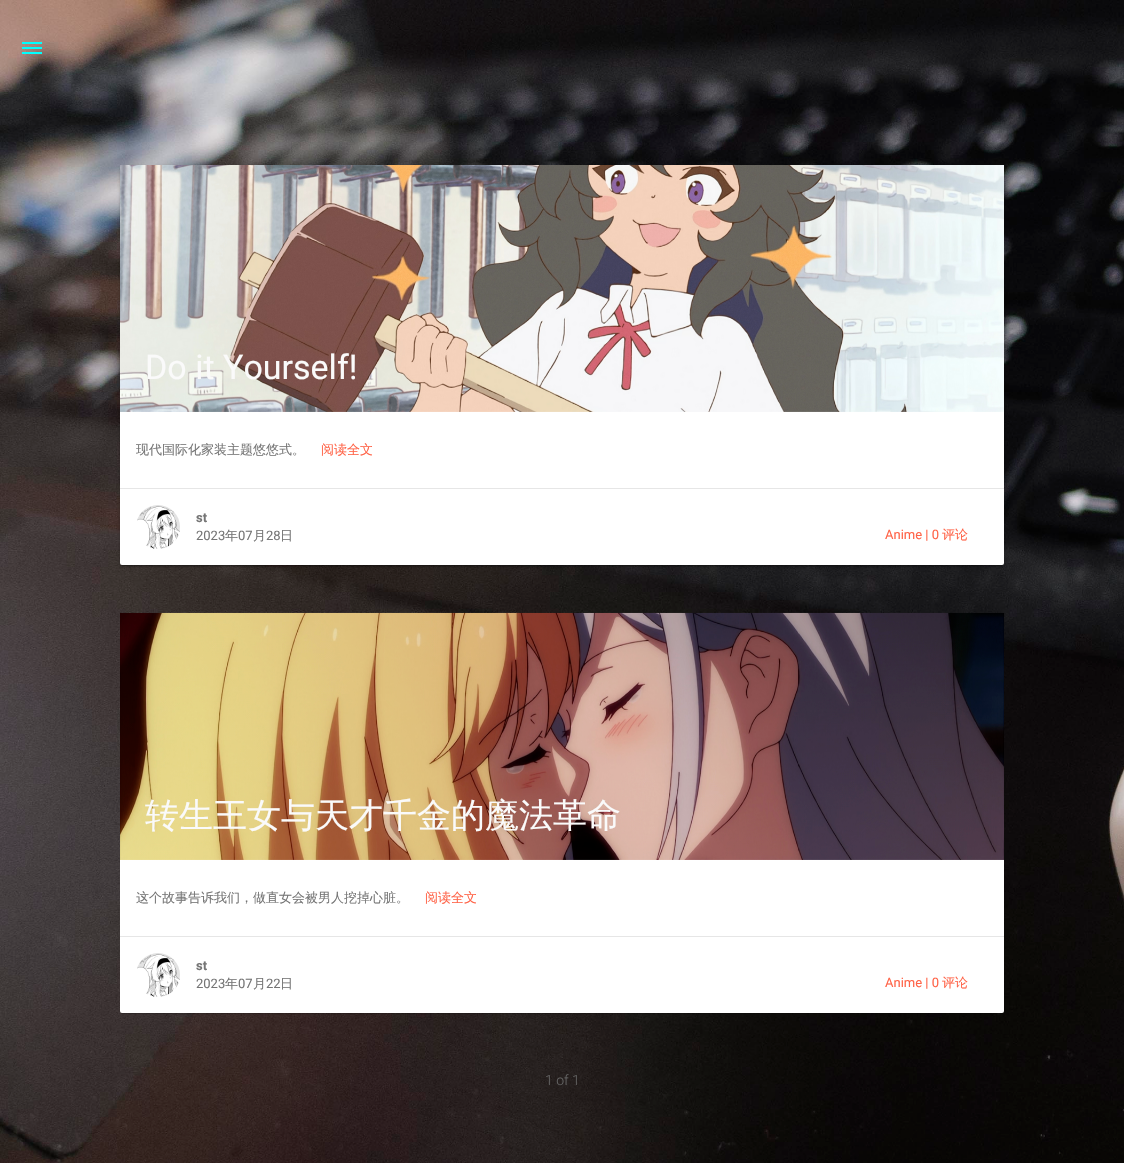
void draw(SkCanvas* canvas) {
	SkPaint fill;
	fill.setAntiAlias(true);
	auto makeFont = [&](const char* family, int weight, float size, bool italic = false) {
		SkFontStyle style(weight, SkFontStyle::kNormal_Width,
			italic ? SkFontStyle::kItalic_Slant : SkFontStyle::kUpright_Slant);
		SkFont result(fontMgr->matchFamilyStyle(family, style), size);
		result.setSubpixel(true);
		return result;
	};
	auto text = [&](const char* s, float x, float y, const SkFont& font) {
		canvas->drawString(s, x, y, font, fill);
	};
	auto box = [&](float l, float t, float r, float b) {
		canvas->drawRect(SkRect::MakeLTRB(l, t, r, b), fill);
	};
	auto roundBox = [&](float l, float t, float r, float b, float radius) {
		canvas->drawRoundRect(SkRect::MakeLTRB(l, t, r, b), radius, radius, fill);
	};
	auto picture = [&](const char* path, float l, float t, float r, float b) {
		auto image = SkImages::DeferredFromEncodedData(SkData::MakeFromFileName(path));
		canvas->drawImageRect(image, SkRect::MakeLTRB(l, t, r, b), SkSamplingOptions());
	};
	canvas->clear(0xFFFFFFFF);
	picture("image0.png", 0, 0, 1124, 1163);
	fill.setColor(0xFF00FFFF);
	box(22, 47, 42, 49);
	box(22, 42, 42, 44);
	box(22, 52, 42, 54);
	fill.setColor(0x1F000000);
	fill.setMaskFilter(SkMaskFilter::MakeBlur(kNormal_SkBlurStyle, 2.5f));
	canvas->drawRoundRect(SkRect::MakeLTRB(120, 166, 1004, 566), 2, 2, fill);
	fill.setMaskFilter(nullptr);
	fill.setColor(0x33000000);
	fill.setMaskFilter(SkMaskFilter::MakeBlur(kNormal_SkBlurStyle, 0.5f));
	canvas->drawRect(SkRect::MakeLTRB(122, 170, 1002, 566), fill);
	fill.setMaskFilter(nullptr);
	fill.setColor(0x24000000);
	fill.setMaskFilter(SkMaskFilter::MakeBlur(kNormal_SkBlurStyle, 1));
	canvas->drawRoundRect(SkRect::MakeLTRB(120, 167, 1004, 567), 2, 2, fill);
	fill.setMaskFilter(nullptr);
	fill.setColor(0xFFFFFFFF);
	roundBox(120, 165, 1004, 565, 2);
	picture("image1.png", 120, 165, 1004, 412);
	fill.setColor(0xFFE6E6E6);
	box(120, 488, 1004, 489);
	picture("image2.png", 137, 505, 180, 549);
	fill.setColor(0x33000000);
	fill.setMaskFilter(SkMaskFilter::MakeBlur(kNormal_SkBlurStyle, 0.5f));
	canvas->drawRect(SkRect::MakeLTRB(122, 618, 1002, 1014), fill);
	fill.setMaskFilter(nullptr);
	fill.setColor(0xFFFFFFFF);
	roundBox(120, 613, 1004, 1013, 2);
	picture("image3.png", 120, 612, 1004, 860);
	fill.setColor(0xFFE6E6E6);
	box(120, 936, 1004, 937);
	picture("image2.png", 137, 953, 180, 997);
	auto font1 = makeFont("Roboto", 400, 34);
	fill.setColor(0xFFFAFAFA);
	text("Do it Yourself!", 145, 379, font1);
	auto font2 = makeFont("WenQuanYi Zen Hei", 500, 13);
	fill.setColor(0xFF757575);
	text("现代国际化家装主题悠悠式。", 136, 454, font2);
	fill.setColor(0xFFFF6347);
	text("阅读全文", 321, 454, font2);
	auto font3 = makeFont("Roboto", 700, 13);
	fill.setColor(0xFF757575);
	text("st", 196, 522, font3);
	auto font4 = makeFont("Roboto", 400, 13);
	text("2023", 196, 540, font4);
	text("年", 225, 540, font2);
	text("07", 238, 540, font4);
	text("月", 253, 540, font2);
	text("28", 266, 540, font4);
	text("日", 280, 540, font2);
	fill.setColor(0xFFFF6347);
	text("Anime | 0", 885, 539, font4);
	text("评论", 942, 539, font2);
	auto font5 = makeFont("WenQuanYi Zen Hei", 500, 34);
	fill.setColor(0xFFFAFAFA);
	text("转生王女与天才千金的魔法革命", 145, 827, font5);
	fill.setColor(0xFF757575);
	text("这个故事告诉我们，做直女会被男人挖掉心脏。", 136, 902, font2);
	fill.setColor(0xFFFF6347);
	text("阅读全文", 425, 902, font2);
	fill.setColor(0xFF757575);
	text("st", 196, 970, font3);
	text("2023", 196, 988, font4);
	text("年", 225, 988, font2);
	text("07", 238, 988, font4);
	text("月", 253, 988, font2);
	text("22", 266, 988, font4);
	text("日", 280, 988, font2);
	fill.setColor(0xFFFF6347);
	text("Anime | 0", 885, 987, font4);
	text("评论", 942, 987, font2);
	auto font6 = makeFont("Roboto", 300, 14);
	fill.setColor(0xFF666666);
	text("1 of 1", 545, 1085, font6);
}
